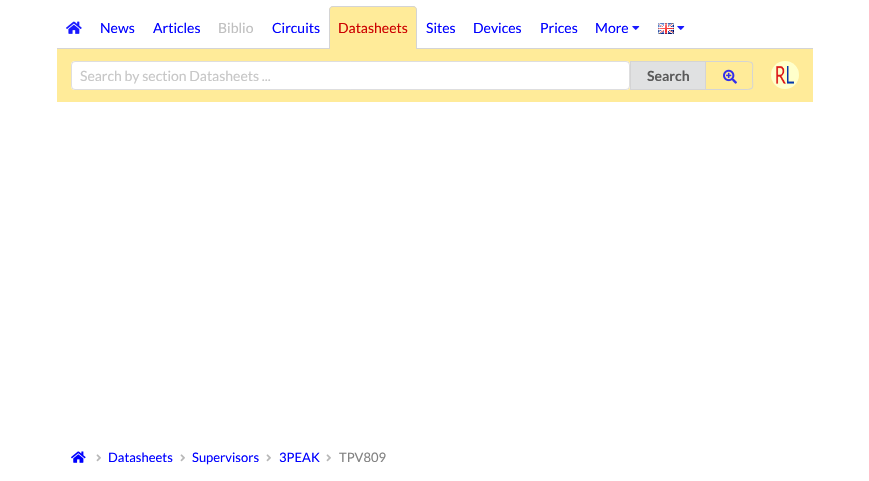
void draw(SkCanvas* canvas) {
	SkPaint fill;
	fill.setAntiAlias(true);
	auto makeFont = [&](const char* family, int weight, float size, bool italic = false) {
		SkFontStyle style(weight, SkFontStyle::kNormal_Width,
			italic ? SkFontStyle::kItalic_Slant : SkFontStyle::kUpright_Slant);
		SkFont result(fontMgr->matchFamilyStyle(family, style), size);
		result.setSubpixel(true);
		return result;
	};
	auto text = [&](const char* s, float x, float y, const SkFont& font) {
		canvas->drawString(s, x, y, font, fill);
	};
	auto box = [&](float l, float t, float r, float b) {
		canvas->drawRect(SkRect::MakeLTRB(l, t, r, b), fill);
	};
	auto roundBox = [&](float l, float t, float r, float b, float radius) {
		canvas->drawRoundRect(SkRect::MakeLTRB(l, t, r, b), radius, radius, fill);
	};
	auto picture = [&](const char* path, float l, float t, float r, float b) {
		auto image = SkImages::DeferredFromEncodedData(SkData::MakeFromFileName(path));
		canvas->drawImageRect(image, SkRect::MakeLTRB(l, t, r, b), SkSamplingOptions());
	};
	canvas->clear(0xFFFFFFFF);
	fill.setColor(0xFFFFEB99);
	box(57, 49, 813, 102);
	fill.setColor(0xFFD4D4D5);
	box(57, 48, 813, 49);
	picture("image0.png", 66, 21, 82, 34);
	fill.setColor(0xFFFFEB99);
	canvas->drawPath(SkPathBuilder().moveTo(333, 6).lineTo(413, 6).cubicTo(415, 6, 417, 8, 417, 10).lineTo(417, 49).lineTo(329, 49).lineTo(329, 10).cubicTo(329, 8, 331, 6, 333, 6).close().detach(), fill);
	fill.setColor(0xFFD4D4D5);
	canvas->drawPath(SkPathBuilder(SkPathFillType::kEvenOdd).moveTo(333, 6).lineTo(413, 6).cubicTo(415, 6, 417, 8, 417, 10).lineTo(417, 49).lineTo(329, 49).lineTo(329, 10).cubicTo(329, 8, 331, 6, 333, 6).close().moveTo(333, 7).lineTo(413, 7).cubicTo(415, 7, 416, 8, 416, 10).lineTo(416, 49).lineTo(330, 49).lineTo(330, 10).cubicTo(330, 8, 331, 7, 333, 7).close().detach(), fill);
	picture("image1.png", 632, 26, 640, 30);
	picture("image2.png", 658, 23, 674, 34);
	picture("image1.png", 677, 26, 685, 30);
	fill.setColor(0xFFFFFFFF);
	roundBox(71, 61, 630, 90, 4);
	fill.setStyle(SkPaint::kStroke_Style);
	fill.setStrokeWidth(1);
	fill.setColor(0x26222426);
	canvas->drawRoundRect(SkRect::MakeLTRB(71.5f, 61.5f, 629.5f, 89.5f), 3.5f, 3.5f, fill);
	fill.setStyle(SkPaint::kFill_Style);
	fill.setColor(0xFFE0E1E2);
	canvas->drawRect(SkRect::MakeLTRB(630.5f, 61.5f, 705.5f, 89.5f), fill);
	fill.setStyle(SkPaint::kStroke_Style);
	fill.setColor(0xFFD4D4D5);
	canvas->drawRect(SkRect::MakeLTRB(630.5f, 61.5f, 705.5f, 89.5f), fill);
	fill.setStyle(SkPaint::kFill_Style);
	canvas->drawPath(SkPathBuilder(SkPathFillType::kEvenOdd).moveTo(706, 61).lineTo(742, 61).cubicTo(756, 61, 753, 62, 753, 76).cubicTo(753, 89, 756, 90, 742, 90).lineTo(706, 90).close().moveTo(706, 62).lineTo(742, 62).cubicTo(755, 62, 752, 62, 752, 76).cubicTo(752, 89, 755, 89, 742, 89).lineTo(706, 89).close().detach(), fill);
	picture("image3.png", 723, 69, 737, 84);
	picture("image4.png", 771, 61, 799, 89);
	picture("image5.png", 71, 451, 86, 463);
	picture("image6.png", 96, 454, 101, 462);
	picture("image6.png", 180, 454, 185, 462);
	picture("image6.png", 266, 454, 271, 462);
	picture("image6.png", 326, 454, 331, 462);
	auto font1 = makeFont("Lato", 400, 14);
	fill.setColor(0xFF0000FF);
	text("News", 100, 33, font1);
	text("Articles", 153, 33, font1);
	fill.setColor(0xFFBFBFBF);
	text("Biblio", 218, 33, font1);
	fill.setColor(0xFF0000FF);
	text("Circuits", 272, 33, font1);
	fill.setColor(0xFFCC0000);
	text("Datasheets", 338, 33, font1);
	fill.setColor(0xFF0000FF);
	text("Sites", 426, 33, font1);
	text("Devices", 473, 33, font1);
	text("Prices", 540, 33, font1);
	text("More", 595, 33, font1);
	fill.setColor(0xFFC7C7C7);
	text("Search by section Datasheets ...", 80, 81, font1);
	auto font2 = makeFont("Lato", 700, 14);
	fill.setColor(0xFF5A5A5A);
	text("Search", 647, 81, font2);
	auto font3 = makeFont("Lato", 400, 13);
	fill.setColor(0xFF0000FF);
	text("Datasheets", 108, 462, font3);
	text("Supervisors", 192, 462, font3);
	text("3PEAK", 279, 462, font3);
	fill.setColor(0xFF828282);
	text("TPV809", 339, 462, font3);
}
